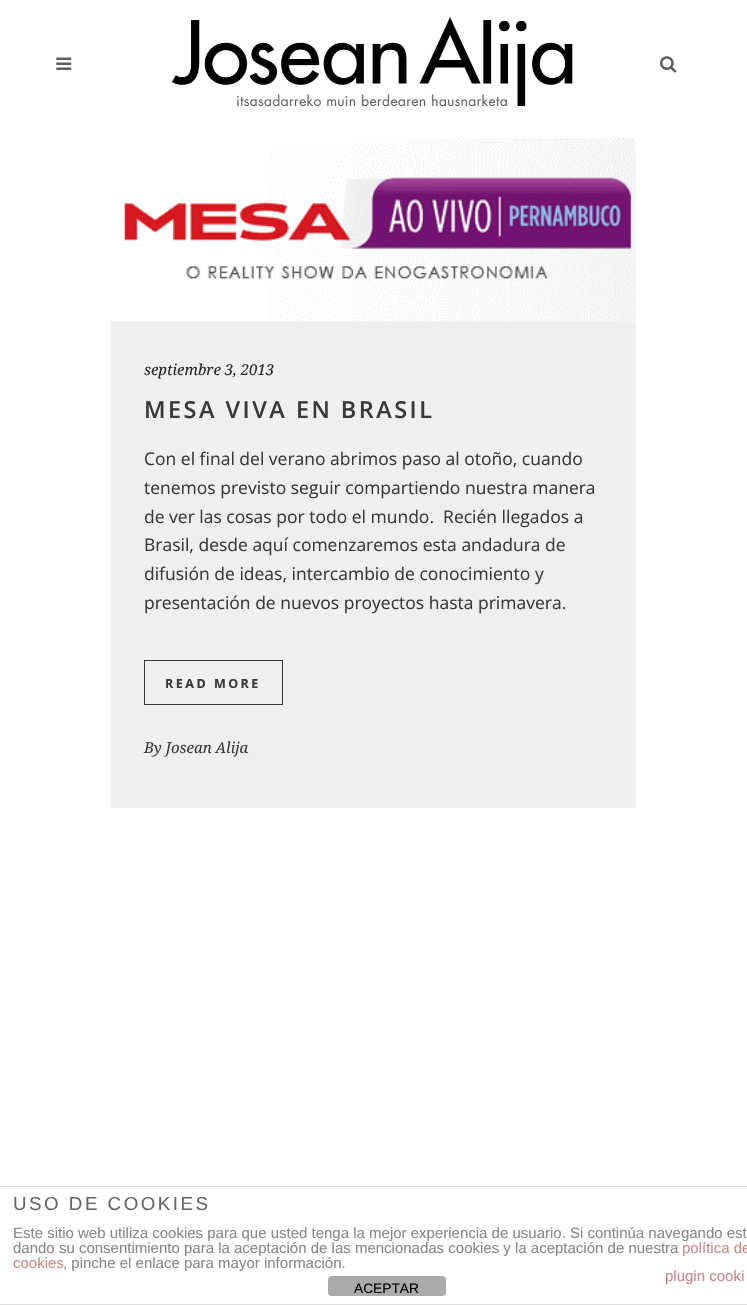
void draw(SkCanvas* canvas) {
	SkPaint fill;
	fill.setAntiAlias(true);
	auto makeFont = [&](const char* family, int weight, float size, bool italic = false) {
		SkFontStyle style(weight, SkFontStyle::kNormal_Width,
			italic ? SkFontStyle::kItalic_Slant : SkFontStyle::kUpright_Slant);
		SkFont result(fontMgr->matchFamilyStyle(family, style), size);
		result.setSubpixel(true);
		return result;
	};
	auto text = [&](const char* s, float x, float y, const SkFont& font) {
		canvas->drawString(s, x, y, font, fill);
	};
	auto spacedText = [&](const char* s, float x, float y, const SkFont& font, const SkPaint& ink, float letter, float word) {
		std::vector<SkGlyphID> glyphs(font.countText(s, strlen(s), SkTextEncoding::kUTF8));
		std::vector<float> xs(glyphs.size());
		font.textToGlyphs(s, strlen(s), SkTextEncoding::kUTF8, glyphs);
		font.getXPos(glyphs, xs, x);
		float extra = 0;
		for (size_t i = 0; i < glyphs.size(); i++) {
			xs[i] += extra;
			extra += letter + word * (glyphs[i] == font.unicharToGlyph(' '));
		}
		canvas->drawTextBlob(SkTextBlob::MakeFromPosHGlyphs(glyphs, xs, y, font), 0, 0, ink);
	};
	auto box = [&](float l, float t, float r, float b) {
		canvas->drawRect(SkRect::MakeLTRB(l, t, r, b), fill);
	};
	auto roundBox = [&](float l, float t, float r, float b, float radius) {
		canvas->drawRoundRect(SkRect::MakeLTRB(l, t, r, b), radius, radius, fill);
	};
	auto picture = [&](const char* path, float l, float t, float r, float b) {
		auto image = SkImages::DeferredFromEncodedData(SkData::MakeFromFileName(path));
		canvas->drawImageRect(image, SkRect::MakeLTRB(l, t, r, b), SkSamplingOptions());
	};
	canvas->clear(0xFFFFFFFF);
	picture("image0.png", 56, 57, 72, 70);
	picture("image1.png", 172, 17, 573, 107);
	picture("image2.png", 660, 56, 677, 73);
	fill.setColor(0xFFEFEFEF);
	box(111, 321, 636, 808);
	picture("image3.png", 112, 137, 637, 322);
	fill.setStyle(SkPaint::kStroke_Style);
	fill.setStrokeWidth(1);
	fill.setColor(0xFF393939);
	canvas->drawRect(SkRect::MakeLTRB(144.5f, 660.5f, 282.5f, 704.5f), fill);
	fill.setStyle(SkPaint::kFill_Style);
	fill.setColor(0xFFDDDDDD);
	box(0, 1186, 747, 1187);
	box(0, 1304, 747, 1305);
	fill.setColor(0xFFAAAAAA);
	roundBox(328, 1276, 446, 1296, 4);
	auto font1 = makeFont("Noto Serif", 400, 15, true);
	fill.setColor(0xFF282828);
	text("septiembre 3, 2013", 144, 375, font1);
	auto font2 = makeFont("Open Sans", 600, 23.4f);
	fill.setColor(0xFF393939);
	spacedText("MESA VIVA EN BRASIL", 144, 418, font2, fill, 2.5f, 0);
	auto font3 = makeFont("Open Sans", 400, 17.5f);
	text("Con el final del verano abrimos paso al otoño, cuando", 144, 465, font3);
	text("tenemos previsto seguir compartiendo nuestra manera", 144, 494, font3);
	text("de ver las cosas por todo el mundo.  Recién llegados a", 144, 523, font3);
	text("Brasil, desde aquí comenzaremos esta andadura de", 144, 551, font3);
	text("difusión de ideas, intercambio de conocimiento y", 144, 580, font3);
	text("presentación de nuevos proyectos hasta primavera.", 144, 609, font3);
	auto font4 = makeFont("Open Sans", 700, 12.5f);
	spacedText("READ MORE", 165, 688, font4, fill, 2.5f, 0);
	text("By Josean Alija", 144, 753, font1);
	auto font5 = makeFont("Liberation Sans", 400, 18.75f);
	fill.setColor(0xFF666666);
	spacedText("USO DE COOKIES", 13, 1210, font5, fill, 2.5f, 0);
	auto font6 = makeFont("Liberation Sans", 400, 15);
	fill.setColor(0xFF888888);
	text("Este sitio web utiliza cookies para que usted tenga la mejor experiencia de usuario. Si continúa navegando est", 13, 1238, font6);
	text("dando su consentimiento para la aceptación de las mencionadas cookies y la aceptación de nuestra", 13, 1253, font6);
	fill.setColor(0xFFCC8888);
	text("política de", 682, 1253, font6);
	text("cookies", 13, 1268, font6);
	fill.setColor(0xFF888888);
	text(", pinche el enlace para mayor información.", 63, 1268, font6);
	fill.setColor(0xFFCC8888);
	text("plugin cooki", 665, 1281, font6);
	auto font7 = makeFont("Liberation Sans", 400, 13.75f);
	fill.setColor(0xFF000000);
	text("ACEPTAR", 354, 1293, font7);
}
